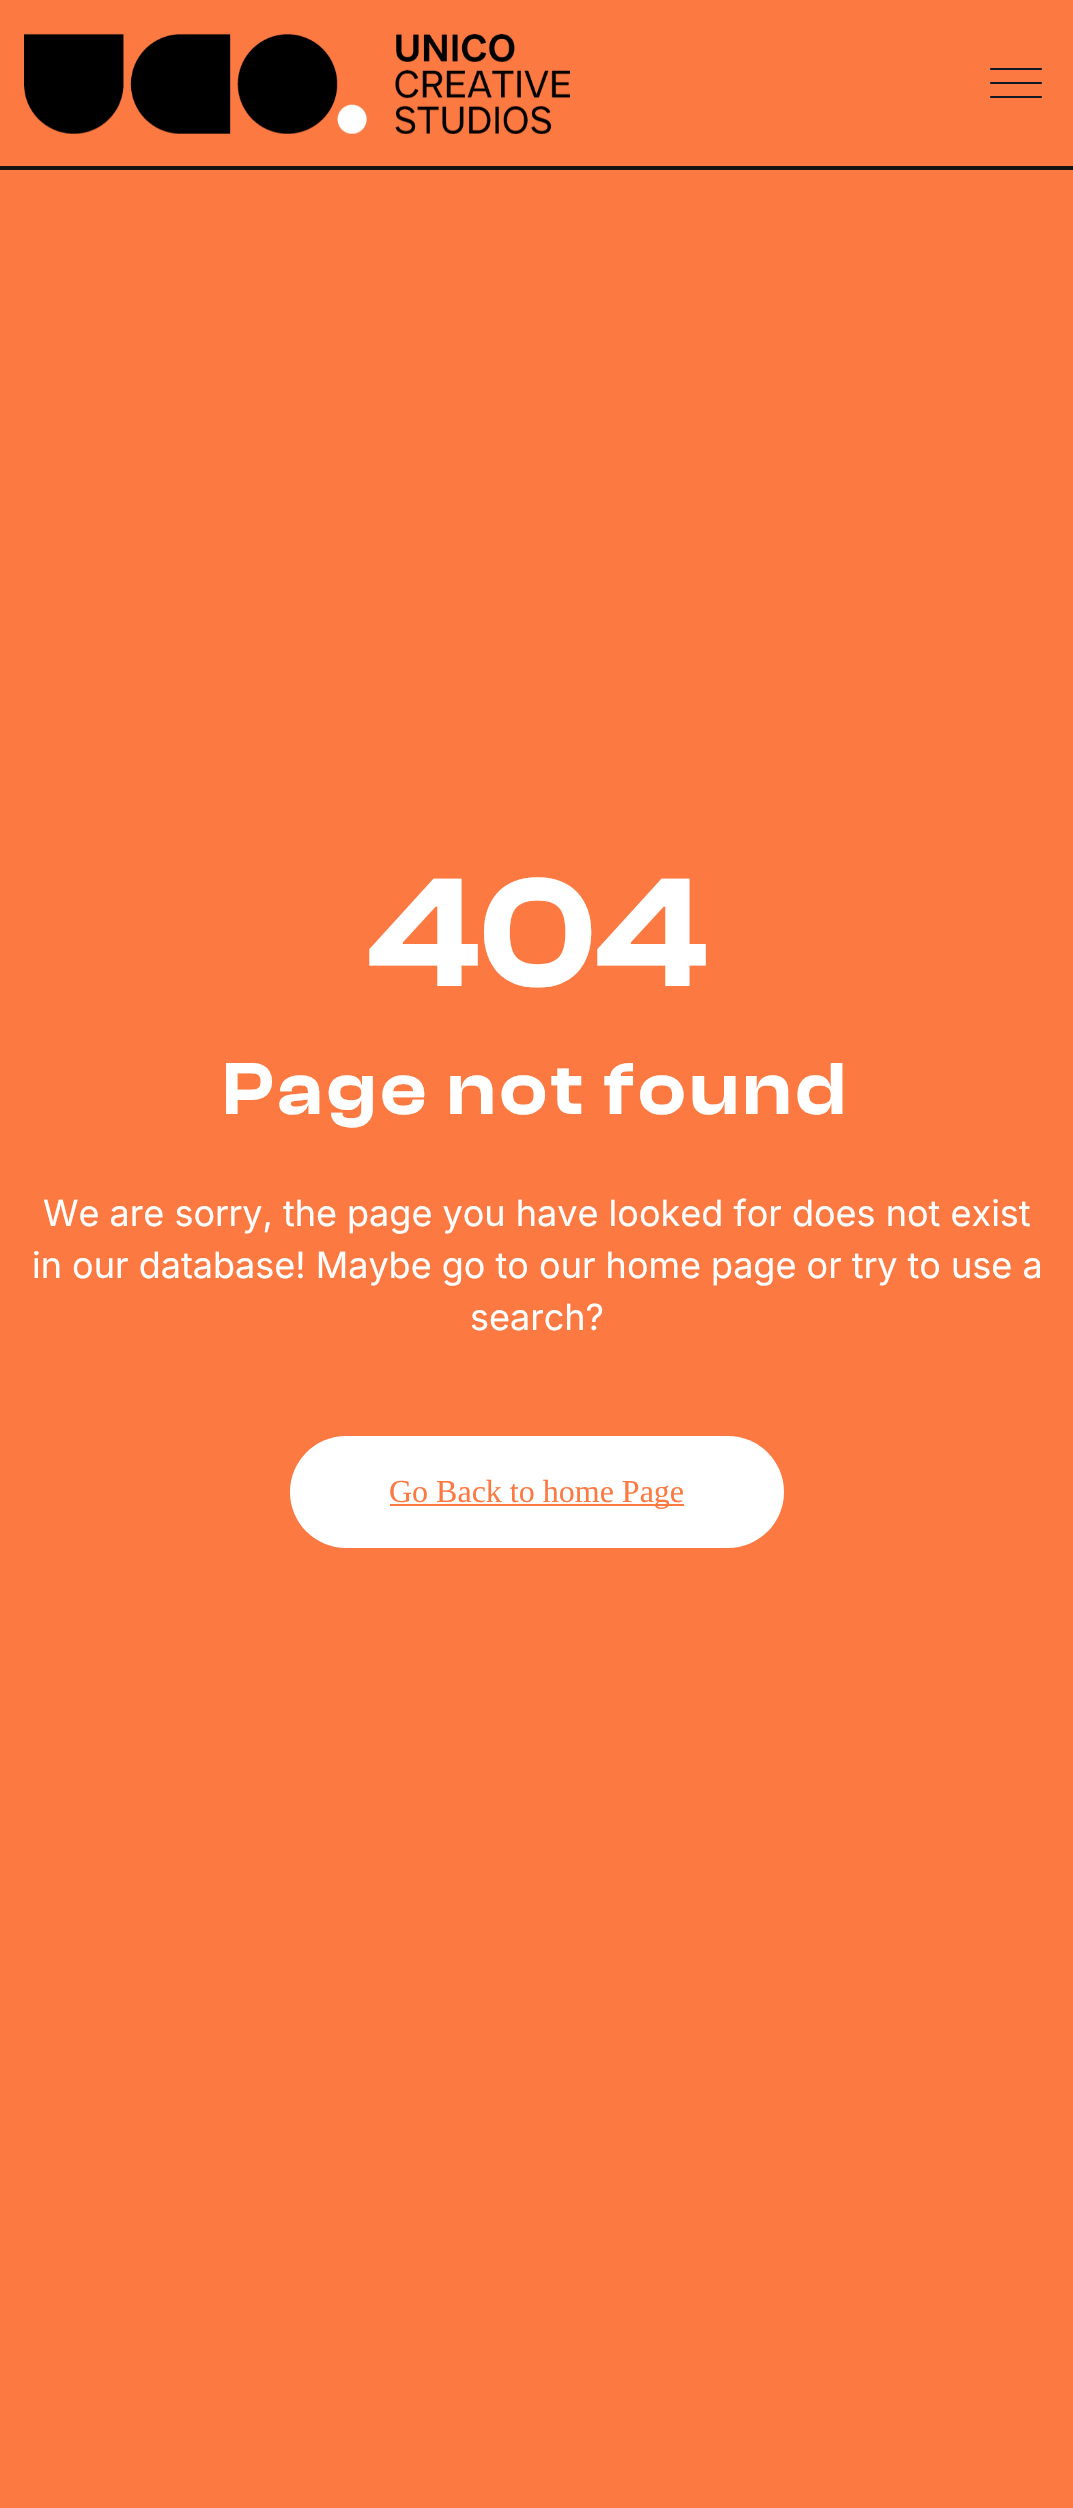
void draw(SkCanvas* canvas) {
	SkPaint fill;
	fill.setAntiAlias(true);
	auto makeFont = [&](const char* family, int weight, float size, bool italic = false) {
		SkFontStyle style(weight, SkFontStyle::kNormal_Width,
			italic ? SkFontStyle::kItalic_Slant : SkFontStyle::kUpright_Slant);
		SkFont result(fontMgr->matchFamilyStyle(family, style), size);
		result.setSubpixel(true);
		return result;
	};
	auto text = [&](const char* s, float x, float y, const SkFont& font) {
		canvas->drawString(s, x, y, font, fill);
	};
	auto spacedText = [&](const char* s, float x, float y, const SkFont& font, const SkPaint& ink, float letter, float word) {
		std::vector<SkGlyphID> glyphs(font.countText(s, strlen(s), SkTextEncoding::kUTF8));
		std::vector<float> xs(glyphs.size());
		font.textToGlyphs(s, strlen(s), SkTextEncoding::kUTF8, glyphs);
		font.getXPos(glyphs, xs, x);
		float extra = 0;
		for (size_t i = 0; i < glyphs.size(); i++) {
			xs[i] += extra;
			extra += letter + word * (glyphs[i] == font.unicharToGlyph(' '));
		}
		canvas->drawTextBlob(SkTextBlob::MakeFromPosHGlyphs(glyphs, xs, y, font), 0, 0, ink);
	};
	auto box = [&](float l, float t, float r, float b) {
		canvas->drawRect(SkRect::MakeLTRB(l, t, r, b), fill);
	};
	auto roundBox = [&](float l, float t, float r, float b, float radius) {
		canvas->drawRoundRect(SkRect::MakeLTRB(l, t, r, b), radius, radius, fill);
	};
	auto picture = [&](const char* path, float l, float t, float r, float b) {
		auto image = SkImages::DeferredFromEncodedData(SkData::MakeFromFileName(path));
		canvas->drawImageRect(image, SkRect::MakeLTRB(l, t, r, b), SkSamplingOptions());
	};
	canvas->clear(0xFFFC7942);
	fill.setColor(0xFF131313);
	box(0, 166, 1073, 170);
	picture("image0.png", 24, 33, 570, 134);
	fill.setColor(0xFF0F1825);
	canvas->drawPath(SkPathBuilder().moveTo(991, 68).lineTo(1020, 68).lineTo(1020, 70).lineTo(991, 70).cubicTo(990.5f, 70, 990, 69.5f, 990, 69).cubicTo(990, 68.5f, 990.5f, 68, 991, 68).close().detach(), fill);
	canvas->drawPath(SkPathBuilder().moveTo(1012, 68).lineTo(1041, 68).cubicTo(1041.5f, 68, 1042, 68.5f, 1042, 69).cubicTo(1042, 69.5f, 1041.5f, 70, 1041, 70).lineTo(1012, 70).close().detach(), fill);
	canvas->drawPath(SkPathBuilder().moveTo(991, 82).lineTo(1020, 82).lineTo(1020, 84).lineTo(991, 84).cubicTo(990.5f, 84, 990, 83.5f, 990, 83).cubicTo(990, 82.5f, 990.5f, 82, 991, 82).close().detach(), fill);
	canvas->drawPath(SkPathBuilder().moveTo(1012, 82).lineTo(1041, 82).cubicTo(1041.5f, 82, 1042, 82.5f, 1042, 83).cubicTo(1042, 83.5f, 1041.5f, 84, 1041, 84).lineTo(1012, 84).close().detach(), fill);
	canvas->drawPath(SkPathBuilder().moveTo(991, 96).lineTo(1020, 96).lineTo(1020, 98).lineTo(991, 98).cubicTo(990.5f, 98, 990, 97.5f, 990, 97).cubicTo(990, 96.5f, 990.5f, 96, 991, 96).close().detach(), fill);
	canvas->drawPath(SkPathBuilder().moveTo(1012, 96).lineTo(1041, 96).cubicTo(1041.5f, 96, 1042, 96.5f, 1042, 97).cubicTo(1042, 97.5f, 1041.5f, 98, 1041, 98).lineTo(1012, 98).close().detach(), fill);
	fill.setColor(0xFFFFFFFF);
	roundBox(290, 1436, 784, 1548, 56);
	fill.setColor(0xFFFC7942);
	box(390, 1504, 684, 1506);
	auto font1 = makeFont("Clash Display", 600, 160);
	fill.setColor(0xFFFFFFFF);
	text("404", 367, 986, font1);
	auto font2 = makeFont("Clash Display", 600, 76);
	spacedText("Page not found", 223, 1114, font2, fill, 4.75f, 0);
	auto font3 = makeFont("Inter", 400, 36);
	text("We are sorry, the page you have looked for does not exist", 43, 1226, font3);
	text("in our database! Maybe go to our home page or try to use a", 32, 1278, font3);
	text("search?", 470, 1330, font3);
	auto font4 = makeFont("Liberation Serif", 400, 32);
	fill.setColor(0xFFFC7942);
	text("Go Back to home Page", 389, 1502, font4);
}
